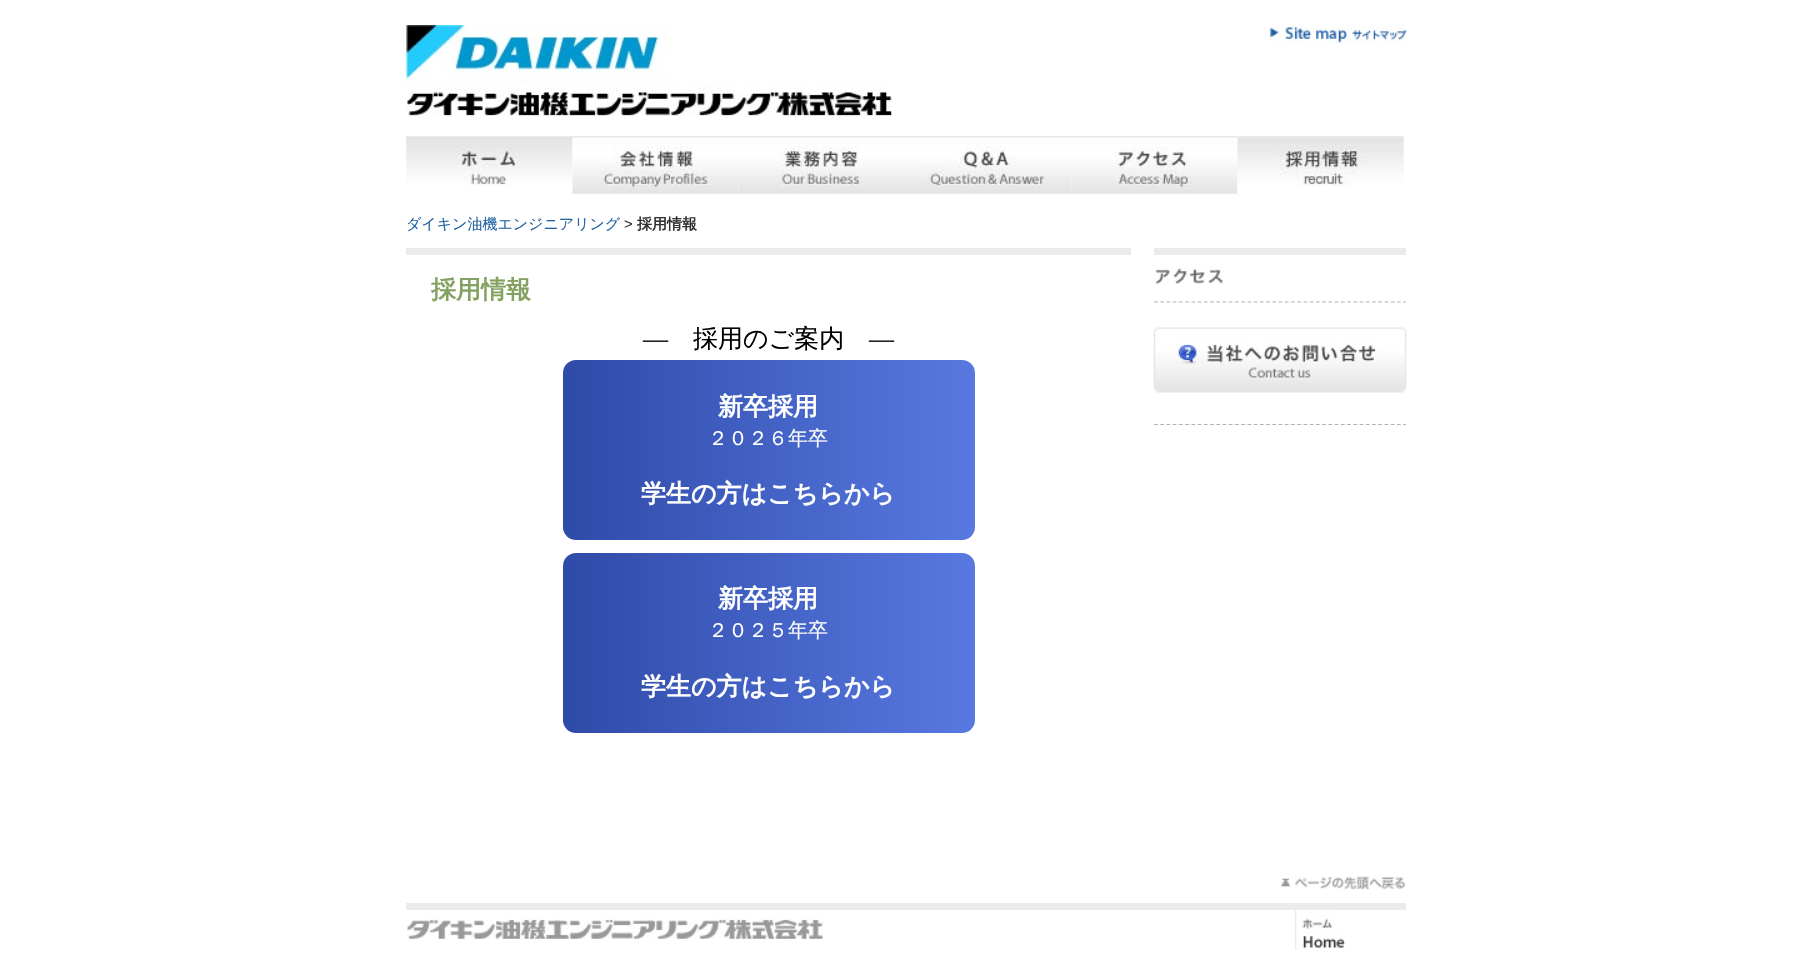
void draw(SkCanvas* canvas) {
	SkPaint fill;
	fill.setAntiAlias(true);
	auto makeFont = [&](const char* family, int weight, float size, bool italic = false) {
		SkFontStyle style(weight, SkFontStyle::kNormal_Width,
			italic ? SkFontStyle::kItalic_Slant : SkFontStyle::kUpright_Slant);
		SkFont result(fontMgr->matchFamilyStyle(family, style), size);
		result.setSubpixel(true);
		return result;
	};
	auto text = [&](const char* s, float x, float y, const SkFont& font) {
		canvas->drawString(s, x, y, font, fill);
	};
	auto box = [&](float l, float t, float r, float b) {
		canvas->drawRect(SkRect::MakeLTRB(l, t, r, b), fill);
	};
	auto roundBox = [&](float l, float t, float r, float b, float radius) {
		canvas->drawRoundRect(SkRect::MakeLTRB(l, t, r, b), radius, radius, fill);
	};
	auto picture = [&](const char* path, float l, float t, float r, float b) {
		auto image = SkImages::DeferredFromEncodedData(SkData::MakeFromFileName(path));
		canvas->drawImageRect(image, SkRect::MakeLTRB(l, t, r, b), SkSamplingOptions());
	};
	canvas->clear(0xFFFFFFFF);
	picture("image0.png", 406, 25, 892, 116);
	picture("image1.png", 1270, 25, 1407, 43);
	picture("image2.png", 406, 136, 573, 186);
	picture("image3.png", 572, 136, 739, 194);
	picture("image4.png", 739, 136, 905, 194);
	picture("image5.png", 905, 136, 1072, 194);
	picture("image6.png", 1071, 136, 1238, 194);
	picture("image7.png", 1237, 136, 1404, 193);
	fill.setColor(0xFFEBEBEB);
	box(406, 248, 1131, 255);
	{
		const SkColor colors[] = {0xFF2F4BA8, 0xFF5879E1};
		const float stops[] = {0, 1};
		const SkPoint ends[] = {{563, 450}, {975, 450}};
		fill.setShader(SkGradientShader::MakeLinear(ends, colors, stops, 2, SkTileMode::kClamp));
		fill.setAlpha(255);
	}
	roundBox(563, 360, 975, 540, 13);
	{
		const SkColor colors[] = {0xFF2F4BA8, 0xFF5879E1};
		const float stops[] = {0, 1};
		const SkPoint ends[] = {{563, 643}, {975, 643}};
		fill.setShader(SkGradientShader::MakeLinear(ends, colors, stops, 2, SkTileMode::kClamp));
		fill.setAlpha(255);
	}
	roundBox(563, 553, 975, 733, 13);
	fill.setShader(nullptr);
	fill.setColor(0xFFEBEBEB);
	box(1154, 248, 1406, 255);
	fill.setStyle(SkPaint::kStroke_Style);
	fill.setStrokeWidth(1.2f);
	fill.setColor(0xFFB1B1B1);
	fill.setPathEffect(SkDashPathEffect::Make({{3.75f, 2.48f}}, 0));
	canvas->drawPath(SkPathBuilder().moveTo(1154, 302).lineTo(1406, 302).detach(), fill);
	fill.setPathEffect(nullptr);
	picture("image8.png", 1155, 268, 1224, 284);
	fill.setPathEffect(SkDashPathEffect::Make({{3.75f, 2.48f}}, 0));
	canvas->drawPath(SkPathBuilder().moveTo(1154, 424.5f).lineTo(1406, 424.5f).detach(), fill);
	fill.setPathEffect(nullptr);
	picture("image9.png", 1153, 327, 1407, 393);
	picture("image10.png", 1281, 876, 1406, 890);
	fill.setStyle(SkPaint::kFill_Style);
	fill.setColor(0xFFEBEBEB);
	box(406, 903, 1406, 910);
	picture("image11.png", 407, 919, 823, 939);
	picture("image12.png", 1295, 910, 1346, 950);
	auto font1 = makeFont("WenQuanYi Zen Hei", 500, 15);
	fill.setColor(0xFF2162A3);
	text("ダイキン油機エンジニアリング", 406, 229, font1);
	auto font2 = makeFont("Liberation Sans", 400, 15);
	fill.setColor(0xFF333333);
	text(">", 624, 229, font2);
	auto font3 = makeFont("WenQuanYi Zen Hei", 700, 15);
	text("採用情報", 637, 229, font3);
	auto font4 = makeFont("WenQuanYi Zen Hei", 700, 25);
	fill.setColor(0xFF83A262);
	text("採用情報", 431, 298, font4);
	auto font5 = makeFont("Liberation Serif", 400, 25);
	fill.setColor(0xFF000000);
	text("―", 643, 347, font5);
	auto font6 = makeFont("WenQuanYi Zen Hei", 500, 25);
	text("採用のご案内", 693, 347, font6);
	text("―", 869, 347, font5);
	fill.setColor(0xFFFFFFFF);
	text("新卒採用", 718, 415, font4);
	auto font7 = makeFont("WenQuanYi Zen Hei", 500, 20);
	text("２０２６年卒", 708, 445, font7);
	text("学生の方はこちらから", 641, 502, font4);
	text("新卒採用", 718, 607, font4);
	text("２０２５年卒", 708, 637, font7);
	text("学生の方はこちらから", 641, 695, font4);
}
